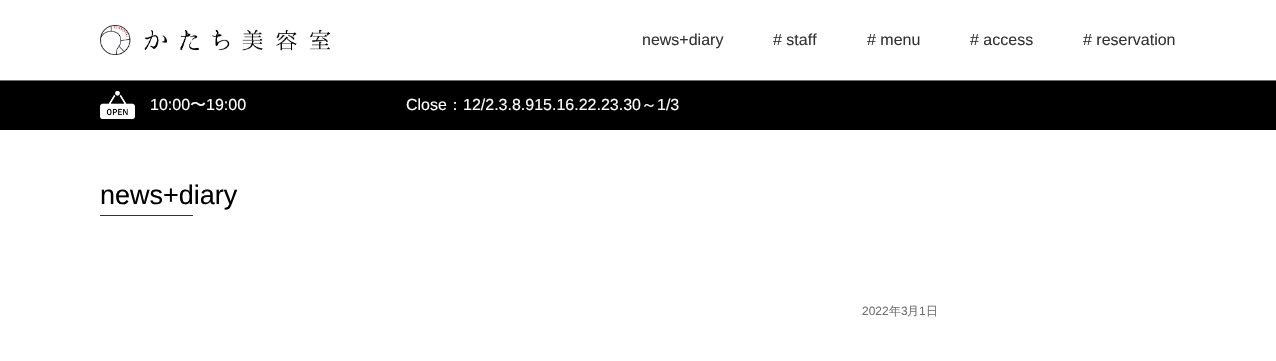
void draw(SkCanvas* canvas) {
	SkPaint fill;
	fill.setAntiAlias(true);
	auto makeFont = [&](const char* family, int weight, float size, bool italic = false) {
		SkFontStyle style(weight, SkFontStyle::kNormal_Width,
			italic ? SkFontStyle::kItalic_Slant : SkFontStyle::kUpright_Slant);
		SkFont result(fontMgr->matchFamilyStyle(family, style), size);
		result.setSubpixel(true);
		return result;
	};
	auto text = [&](const char* s, float x, float y, const SkFont& font) {
		canvas->drawString(s, x, y, font, fill);
	};
	auto box = [&](float l, float t, float r, float b) {
		canvas->drawRect(SkRect::MakeLTRB(l, t, r, b), fill);
	};
	auto picture = [&](const char* path, float l, float t, float r, float b) {
		auto image = SkImages::DeferredFromEncodedData(SkData::MakeFromFileName(path));
		canvas->drawImageRect(image, SkRect::MakeLTRB(l, t, r, b), SkSamplingOptions());
	};
	canvas->clear(0xFFFFFFFF);
	fill.setColor(0xFF707070);
	box(0, 80, 1276, 81);
	picture("image0.png", 100, 25, 330, 55);
	fill.setColor(0xFF000000);
	box(0, 81, 1276, 130);
	picture("image1.png", 100, 91, 135, 119);
	fill.setColor(0xFF333333);
	box(100, 215, 193, 216);
	auto font1 = makeFont("Liberation Sans", 400, 16);
	text("news+diary", 642, 45, font1);
	text("# staff", 773, 45, font1);
	text("# menu", 867, 45, font1);
	text("# access", 970, 45, font1);
	text("# reservation", 1083, 45, font1);
	fill.setColor(0xFFFFFFFF);
	text("10:00", 150, 110, font1);
	auto font2 = makeFont("WenQuanYi Zen Hei", 500, 16);
	text("〜", 190, 110, font2);
	text("19:00", 206, 110, font1);
	text("Close", 406, 110, font1);
	text("：", 447, 110, font2);
	text("12/2.3.8.915.16.22.23.30", 463, 110, font1);
	text("～", 641, 110, font2);
	text("1/3", 657, 110, font1);
	auto font3 = makeFont("Liberation Sans", 400, 27);
	fill.setColor(0xFF000000);
	text("news+diary", 100, 204, font3);
	auto font4 = makeFont("Liberation Sans", 400, 12);
	fill.setColor(0xFF707070);
	text("2022", 862, 315, font4);
	auto font5 = makeFont("WenQuanYi Zen Hei", 500, 12);
	text("年", 889, 315, font5);
	text("3", 901, 315, font4);
	text("月", 907, 315, font5);
	text("1", 919, 315, font4);
	text("日", 926, 315, font5);
}
